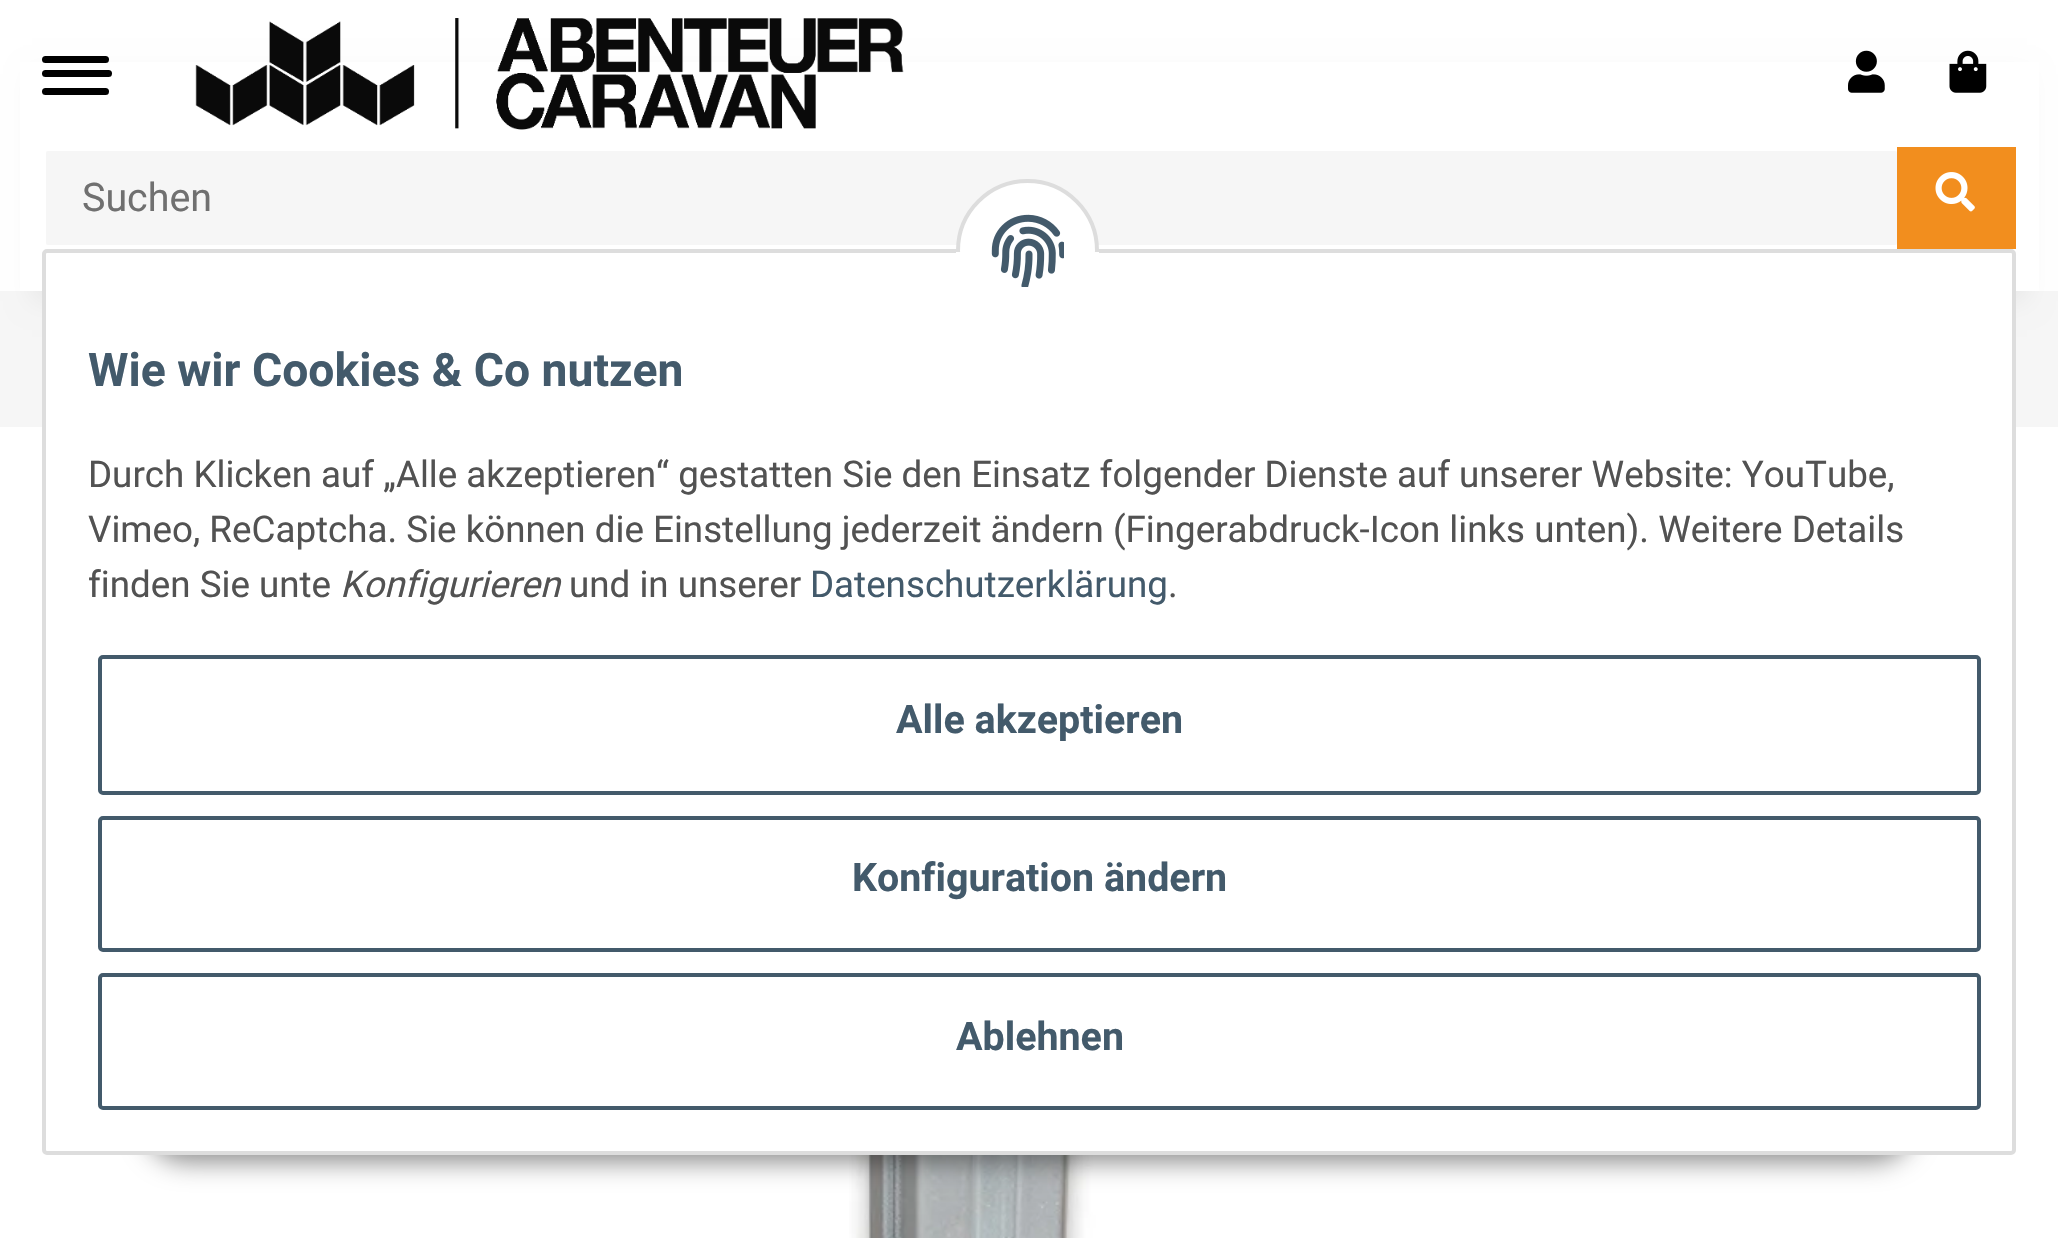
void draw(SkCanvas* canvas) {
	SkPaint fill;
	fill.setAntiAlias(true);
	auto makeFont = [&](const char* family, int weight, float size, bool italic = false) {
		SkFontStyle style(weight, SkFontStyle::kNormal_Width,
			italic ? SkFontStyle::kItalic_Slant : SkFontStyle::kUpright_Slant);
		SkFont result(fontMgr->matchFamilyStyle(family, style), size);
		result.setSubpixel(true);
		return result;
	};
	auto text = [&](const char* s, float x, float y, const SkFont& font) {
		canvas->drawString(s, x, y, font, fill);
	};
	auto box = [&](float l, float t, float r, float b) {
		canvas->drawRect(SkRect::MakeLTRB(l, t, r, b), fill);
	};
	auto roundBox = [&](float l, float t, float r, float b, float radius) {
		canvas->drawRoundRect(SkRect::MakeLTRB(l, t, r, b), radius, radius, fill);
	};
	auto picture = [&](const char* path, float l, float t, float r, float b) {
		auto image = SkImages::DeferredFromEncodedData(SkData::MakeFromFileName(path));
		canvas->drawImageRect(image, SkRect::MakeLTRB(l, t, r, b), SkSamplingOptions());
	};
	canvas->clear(0xFFFFFFFF);
	fill.setColor(0xFFF6F6F6);
	box(0, 291, 2058, 427);
	fill.setColor(0x0F000000);
	fill.setMaskFilter(SkMaskFilter::MakeBlur(kNormal_SkBlurStyle, 12));
	canvas->drawRect(SkRect::MakeLTRB(32, 74, 2027, 301), fill);
	fill.setMaskFilter(nullptr);
	fill.setColor(0xFFFFFFFF);
	box(20, 62, 2039, 291);
	fill.setColor(0xFF000000);
	roundBox(42, 70, 112, 77, 3.5f);
	roundBox(42, 56, 109, 63, 3.5f);
	roundBox(42, 88, 109, 95, 3.5f);
	picture("image0.png", 195, 18, 904, 130);
	picture("image1.png", 1848, 50, 1885, 93);
	picture("image2.png", 1949, 50, 1987, 93);
	fill.setColor(0xFFF6F6F6);
	roundBox(46, 151, 1897, 245, 2);
	fill.setColor(0xFFF28E1E);
	box(1897, 147, 2016, 249);
	picture("image3.png", 1935, 172, 1975, 212);
	picture("image4.png", 849, 1155, 1099, 1238);
	fill.setColor(0x73000000);
	fill.setMaskFilter(SkMaskFilter::MakeBlur(kNormal_SkBlurStyle, 13));
	canvas->drawRoundRect(SkRect::MakeLTRB(144, 1078, 1915, 1162), 42, 42, fill);
	fill.setMaskFilter(nullptr);
	fill.setColor(0xFFFFFFFF);
	canvas->drawRoundRect(SkRect::MakeLTRB(44, 251, 2014, 1153), 3, 3, fill);
	fill.setStyle(SkPaint::kStroke_Style);
	fill.setStrokeWidth(4);
	fill.setColor(0xFFDDDDDD);
	canvas->drawRoundRect(SkRect::MakeLTRB(44, 251, 2014, 1153), 3, 3, fill);
	fill.setStyle(SkPaint::kFill_Style);
	fill.setColor(0xFFFFFFFF);
	canvas->drawCircle(1027.5f, 250.5f, 69.5f, fill);
	fill.setStyle(SkPaint::kStroke_Style);
	fill.setColor(0xFFDDDDDD);
	canvas->drawCircle(1027.5f, 250.5f, 69.5f, fill);
	fill.setStyle(SkPaint::kFill_Style);
	fill.setColor(0xFFFFFFFF);
	box(956, 252, 1099, 322);
	picture("image5.png", 991, 214, 1064, 287);
	fill.setStyle(SkPaint::kStroke_Style);
	fill.setColor(0xFF435A6B);
	canvas->drawRoundRect(SkRect::MakeLTRB(100, 657, 1979, 793), 3, 3, fill);
	canvas->drawRoundRect(SkRect::MakeLTRB(100, 818, 1979, 950), 3, 3, fill);
	canvas->drawRoundRect(SkRect::MakeLTRB(100, 975, 1979, 1108), 3, 3, fill);
	auto font1 = makeFont("Roboto", 400, 39.4f);
	fill.setStyle(SkPaint::kFill_Style);
	fill.setColor(0xFF707070);
	text("Suchen", 82, 211, font1);
	auto font2 = makeFont("Roboto", 700, 46.25f);
	fill.setColor(0xFF435A6B);
	text("Wie wir Cookies & Co nutzen", 88, 386, font2);
	auto font3 = makeFont("Roboto", 400, 36.75f);
	fill.setColor(0xFF525252);
	text("Durch Klicken auf „Alle akzeptieren“ gestatten Sie den Einsatz folgender Dienste auf unserer Website: YouTube,", 88, 487, font3);
	text("Vimeo, ReCaptcha. Sie können die Einstellung jederzeit ändern (Fingerabdruck-Icon links unten). Weitere Details", 88, 542, font3);
	text("finden Sie unte", 88, 597, font3);
	auto font4 = makeFont("Roboto", 400, 36.75f, true);
	text("Konfigurieren", 340, 597, font4);
	text("und in unserer", 569, 597, font3);
	fill.setColor(0xFF435A6B);
	text("Datenschutzerklärung", 810, 597, font3);
	fill.setColor(0xFF525252);
	text(".", 1168, 597, font3);
	auto font5 = makeFont("Roboto", 700, 39.4f);
	fill.setColor(0xFF435A6B);
	text("Alle akzeptieren", 896, 733, font5);
	text("Konfiguration ändern", 852, 891, font5);
	text("Ablehnen", 956, 1050, font5);
}
